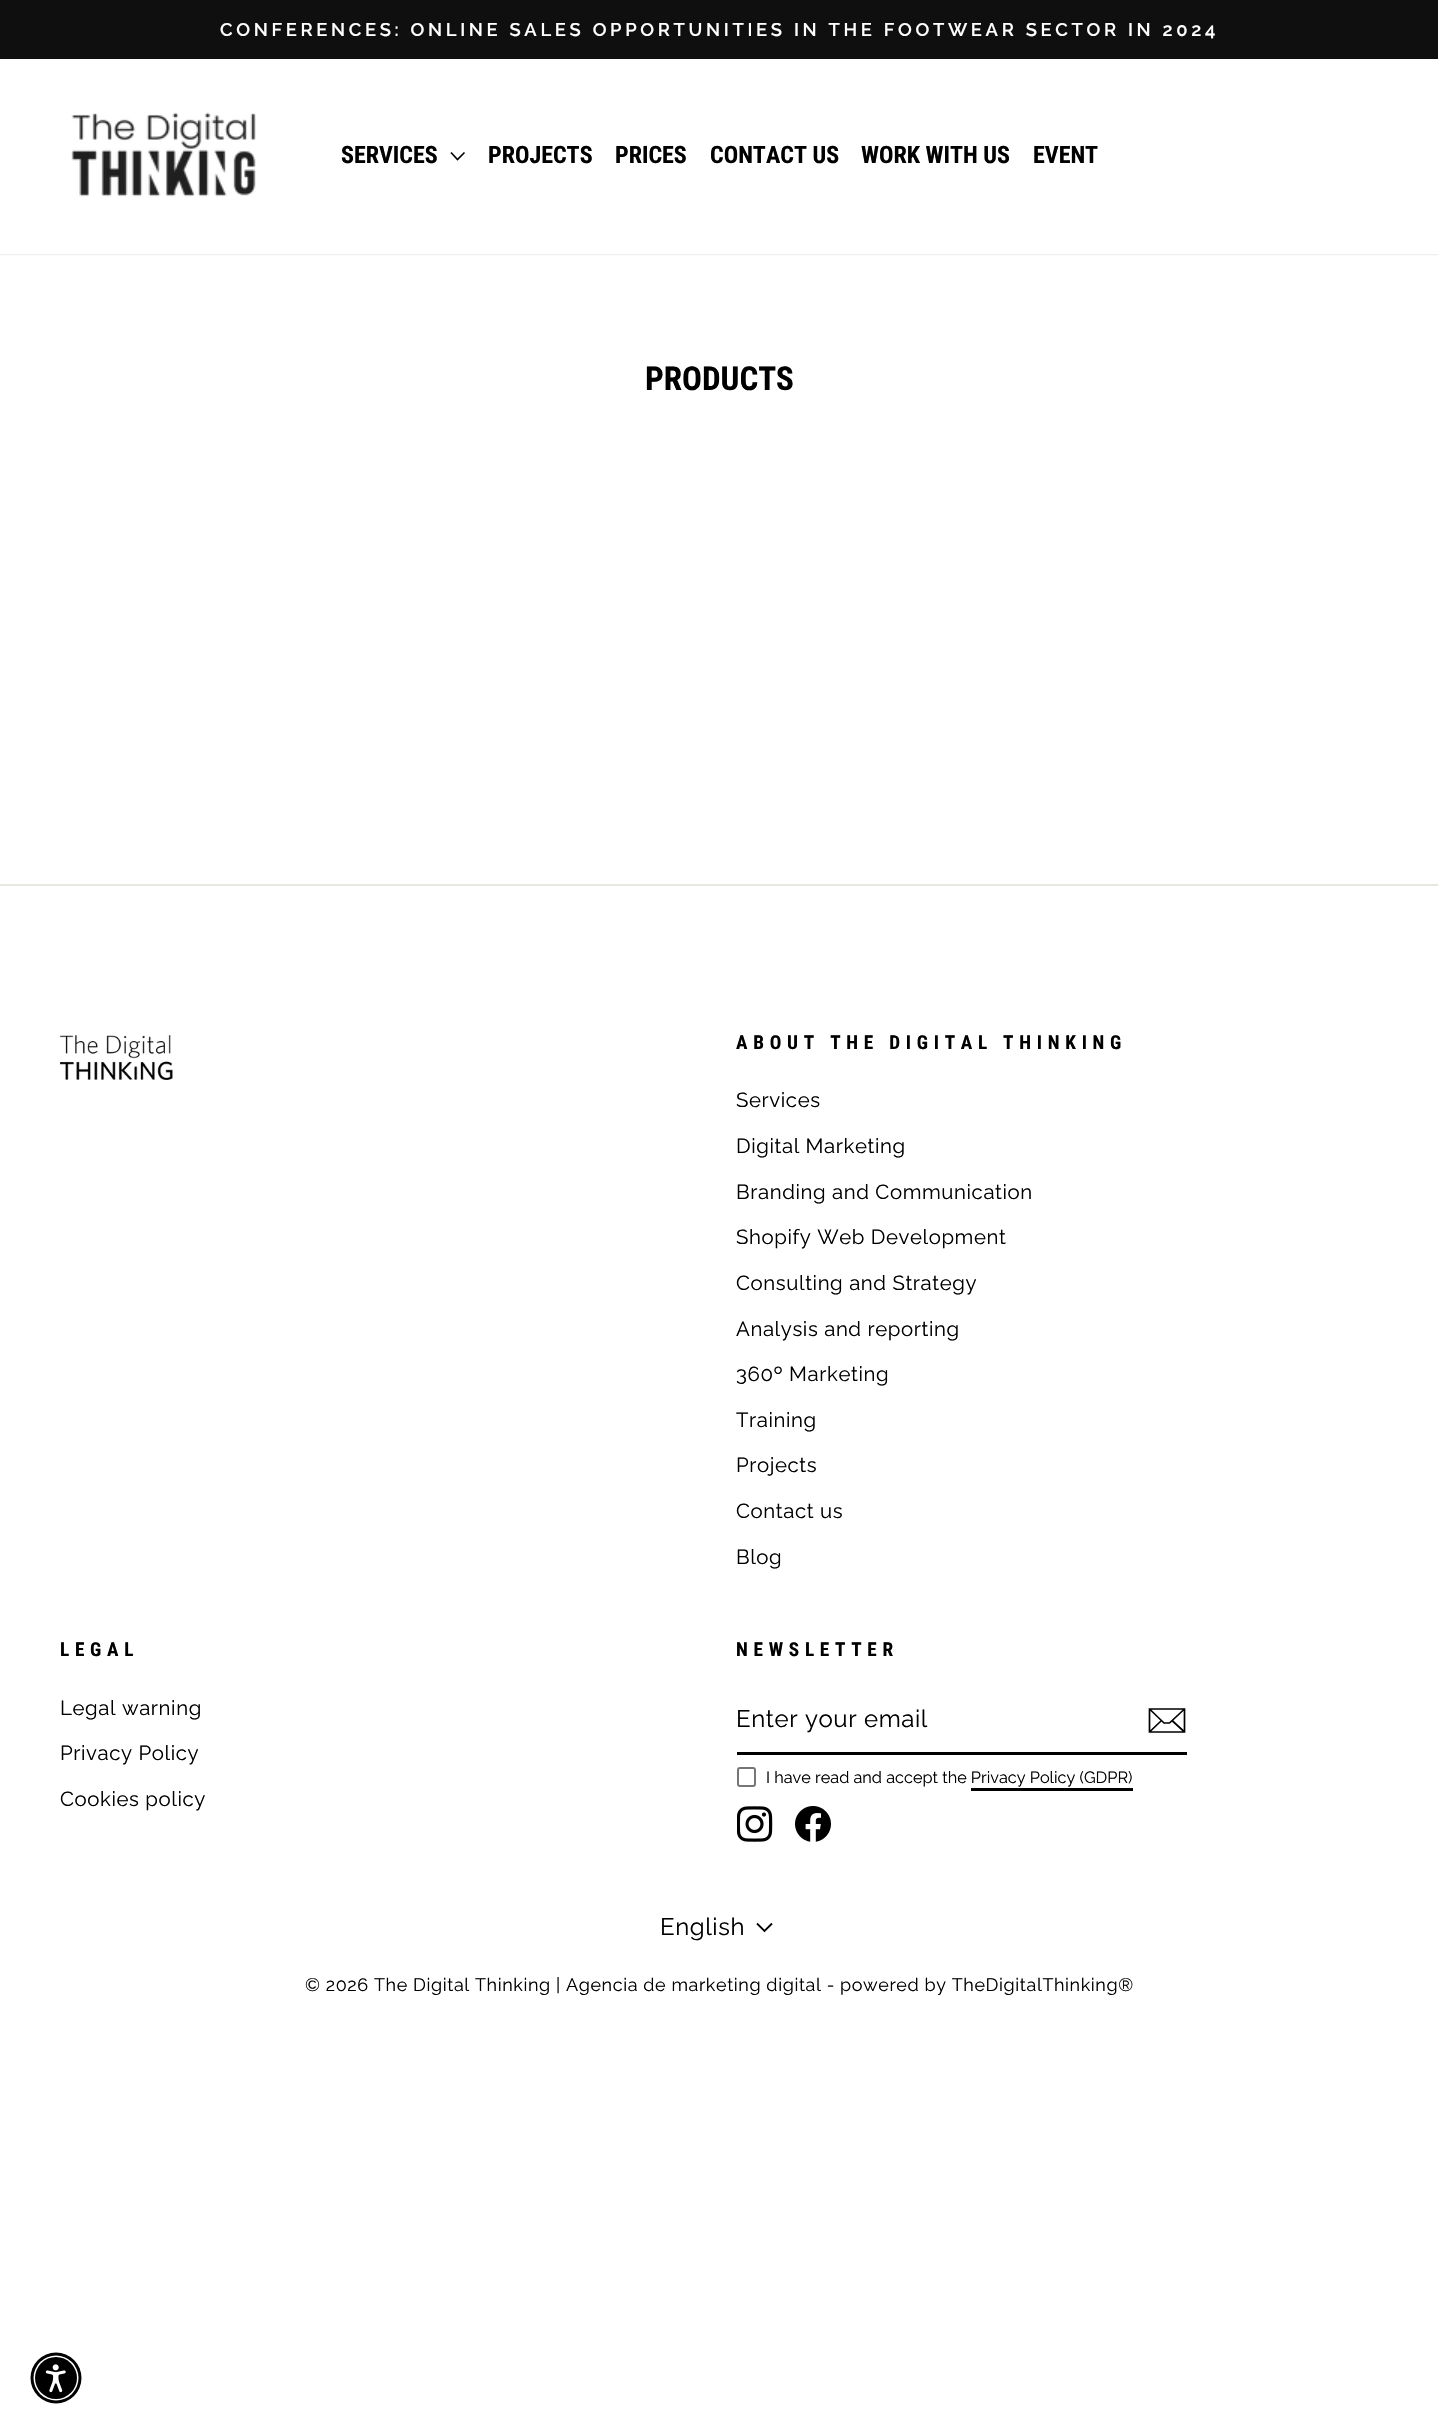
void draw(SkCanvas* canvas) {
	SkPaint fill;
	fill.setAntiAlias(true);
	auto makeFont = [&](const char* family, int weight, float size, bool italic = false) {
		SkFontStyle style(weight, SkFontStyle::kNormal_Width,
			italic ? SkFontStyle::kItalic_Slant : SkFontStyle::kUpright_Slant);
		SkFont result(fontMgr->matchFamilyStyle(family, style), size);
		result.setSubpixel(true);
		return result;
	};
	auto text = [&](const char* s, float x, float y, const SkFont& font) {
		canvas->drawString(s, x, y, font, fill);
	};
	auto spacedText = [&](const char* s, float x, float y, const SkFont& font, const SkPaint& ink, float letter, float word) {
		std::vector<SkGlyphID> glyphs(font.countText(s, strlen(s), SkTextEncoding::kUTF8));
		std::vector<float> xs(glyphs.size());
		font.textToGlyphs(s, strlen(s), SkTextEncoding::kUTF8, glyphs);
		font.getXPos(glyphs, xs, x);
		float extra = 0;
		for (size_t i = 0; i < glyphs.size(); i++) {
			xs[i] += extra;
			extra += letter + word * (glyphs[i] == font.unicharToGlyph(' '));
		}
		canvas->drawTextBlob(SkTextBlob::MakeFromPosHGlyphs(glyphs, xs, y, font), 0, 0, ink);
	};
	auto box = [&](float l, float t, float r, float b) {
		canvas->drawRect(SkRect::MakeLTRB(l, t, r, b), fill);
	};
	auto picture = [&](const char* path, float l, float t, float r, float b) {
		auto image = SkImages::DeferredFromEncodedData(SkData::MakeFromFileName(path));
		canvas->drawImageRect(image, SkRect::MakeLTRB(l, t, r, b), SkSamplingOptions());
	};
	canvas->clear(0xFFFFFFFF);
	fill.setColor(0xFF0F0F0F);
	box(0, 0, 1438, 59);
	fill.setColor(0x33000000);
	fill.setMaskFilter(SkMaskFilter::MakeBlur(kNormal_SkBlurStyle, 1));
	canvas->drawRect(SkRect::MakeLTRB(0, 59, 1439, 254), fill);
	fill.setMaskFilter(nullptr);
	fill.setColor(0xFFFFFFFF);
	box(0, 59, 1438, 254);
	picture("image0.png", 71, 112, 256, 197);
	fill.setStyle(SkPaint::kStroke_Style);
	fill.setStrokeWidth(1.6f);
	fill.setColor(0xFF000000);
	canvas->drawPath(SkPathBuilder().moveTo(451, 152.5f).lineTo(457.5f, 159.5f).lineTo(464.5f, 152.5f).detach(), fill);
	fill.setStyle(SkPaint::kFill_Style);
	fill.setColor(0xFFE8E8E1);
	box(0, 884, 1438, 886);
	picture("image1.png", 60, 1035, 173, 1080);
	fill.setColor(0xFF000000);
	box(737, 1752, 1187, 1755);
	fill.setStyle(SkPaint::kStroke_Style);
	fill.setStrokeWidth(1.7f);
	canvas->drawPath(SkPathBuilder().moveTo(1184.5f, 1732).lineTo(1149.5f, 1732).lineTo(1149.5f, 1709).lineTo(1184.5f, 1709).close().moveTo(1149.5f, 1709).lineTo(1164, 1723).lineTo(1169.5f, 1723).lineTo(1184.5f, 1709).moveTo(1161.5f, 1720.5f).lineTo(1150, 1731.5f).moveTo(1184, 1731.5f).lineTo(1172, 1720.5f).detach(), fill);
	fill.setStrokeWidth(2);
	fill.setColor(0xFF767676);
	canvas->drawRoundRect(SkRect::MakeLTRB(738, 1768, 755, 1786), 2, 2, fill);
	fill.setStyle(SkPaint::kFill_Style);
	fill.setColor(0xFF000000);
	box(971, 1788, 1133, 1791);
	picture("image2.png", 737, 1806, 773, 1842);
	picture("image3.png", 795, 1806, 831, 1842);
	fill.setStyle(SkPaint::kStroke_Style);
	fill.setStrokeWidth(1.8f);
	canvas->drawPath(SkPathBuilder().moveTo(757, 1923.5f).lineTo(764.5f, 1931).lineTo(772, 1923.5f).detach(), fill);
	fill.setStyle(SkPaint::kFill_Style);
	canvas->drawCircle(56, 2378, 25.5f, fill);
	fill.setColor(0xFFFFFFFF);
	canvas->drawCircle(56, 2378, 22.5f, fill);
	fill.setColor(0xFF000000);
	canvas->drawCircle(56, 2378, 21, fill);
	picture("image4.png", 45, 2364, 66, 2393);
	auto font1 = makeFont("Raleway", 600, 18.35f);
	fill.setColor(0xFFFFFFFF);
	spacedText("CONFERENCES: ONLINE SALES OPPORTUNITIES IN THE FOOTWEAR SECTOR IN 2024", 220, 36, font1, fill, 3.67f, 0);
	auto font2 = makeFont("Roboto Condensed", 700, 24);
	fill.setColor(0xFF000000);
	text("SERVICES", 341, 163, font2);
	text("PROJECTS", 488, 163, font2);
	text("PRICES", 615, 163, font2);
	text("CONTACT US", 710, 163, font2);
	text("WORK WITH US", 861, 163, font2);
	text("EVENT", 1033, 163, font2);
	auto font3 = makeFont("Roboto Condensed", 700, 33);
	text("PRODUCTS", 645, 390, font3);
	auto font4 = makeFont("Roboto Condensed", 700, 19.2f);
	spacedText("ABOUT THE DIGITAL THINKING", 736, 1049, font4, fill, 5.75f, 0);
	auto font5 = makeFont("Raleway", 400, 20.4f);
	spacedText("Services", 736, 1107, font5, fill, 0.6f, 0);
	spacedText("Digital Marketing", 736, 1153, font5, fill, 0.6f, 0);
	spacedText("Branding and Communication", 736, 1199, font5, fill, 0.6f, 0);
	spacedText("Shopify Web Development", 736, 1244, font5, fill, 0.6f, 0);
	spacedText("Consulting and Strategy", 736, 1290, font5, fill, 0.6f, 0);
	spacedText("Analysis and reporting", 736, 1336, font5, fill, 0.6f, 0);
	spacedText("360º Marketing", 736, 1381, font5, fill, 0.6f, 0);
	spacedText("Training", 736, 1427, font5, fill, 0.6f, 0);
	spacedText("Projects", 736, 1472, font5, fill, 0.6f, 0);
	spacedText("Contact us", 736, 1518, font5, fill, 0.6f, 0);
	spacedText("Blog", 736, 1564, font5, fill, 0.6f, 0);
	spacedText("LEGAL", 60, 1656, font4, fill, 5.75f, 0);
	spacedText("Legal warning", 60, 1715, font5, fill, 0.6f, 0);
	spacedText("Privacy Policy", 60, 1760, font5, fill, 0.6f, 0);
	spacedText("Cookies policy", 60, 1806, font5, fill, 0.6f, 0);
	spacedText("NEWSLETTER", 736, 1656, font4, fill, 5.75f, 0);
	auto font6 = makeFont("Raleway", 400, 24);
	spacedText("Enter your email", 736, 1727, font6, fill, 0.6f, 0);
	auto font7 = makeFont("Raleway", 400, 16.3f);
	text("I have read and accept the Privacy Policy (GDPR)", 766, 1783, font7);
	spacedText("English", 660, 1935, font6, fill, 0.6f, 0);
	auto font8 = makeFont("Raleway", 400, 18);
	spacedText("© 2026 The Digital Thinking | Agencia de marketing digital - powered by TheDigitalThinking®", 305, 1991, font8, fill, 0.6f, 0);
}
